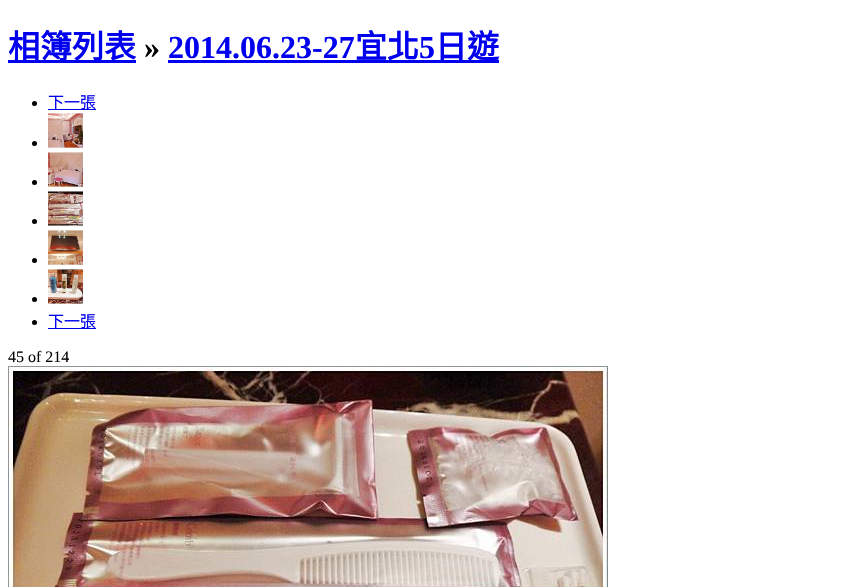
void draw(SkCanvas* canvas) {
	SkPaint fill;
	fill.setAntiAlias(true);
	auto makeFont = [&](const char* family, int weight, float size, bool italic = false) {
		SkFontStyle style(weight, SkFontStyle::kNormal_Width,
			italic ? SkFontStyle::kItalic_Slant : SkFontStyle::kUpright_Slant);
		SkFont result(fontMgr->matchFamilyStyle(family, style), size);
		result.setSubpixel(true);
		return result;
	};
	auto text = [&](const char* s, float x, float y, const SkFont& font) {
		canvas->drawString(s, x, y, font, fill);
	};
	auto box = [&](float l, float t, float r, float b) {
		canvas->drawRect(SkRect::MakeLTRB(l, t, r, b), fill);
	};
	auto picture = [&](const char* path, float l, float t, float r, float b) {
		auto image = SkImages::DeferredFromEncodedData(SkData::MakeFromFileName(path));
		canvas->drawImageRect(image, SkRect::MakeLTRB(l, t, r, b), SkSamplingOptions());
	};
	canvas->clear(0xFFFFFFFF);
	fill.setColor(0xFF0000EE);
	box(8, 60, 136, 63);
	box(168, 60, 499, 63);
	fill.setColor(0xFF000000);
	canvas->drawCircle(34.5f, 103.5f, 2.5f, fill);
	fill.setColor(0xFF0000EE);
	box(48, 109, 96, 110);
	fill.setColor(0xFF000000);
	canvas->drawCircle(34.5f, 143.5f, 2.5f, fill);
	picture("image0.png", 48, 113, 83, 148);
	canvas->drawCircle(34.5f, 182.5f, 2.5f, fill);
	picture("image1.png", 48, 152, 83, 187);
	canvas->drawCircle(34.5f, 221.5f, 2.5f, fill);
	picture("image2.png", 48, 191, 83, 226);
	canvas->drawCircle(34.5f, 260.5f, 2.5f, fill);
	picture("image3.png", 48, 230, 83, 265);
	canvas->drawCircle(34.5f, 299.5f, 2.5f, fill);
	picture("image4.png", 48, 269, 83, 304);
	canvas->drawCircle(34.5f, 322.5f, 2.5f, fill);
	fill.setColor(0xFF0000EE);
	box(48, 328, 96, 329);
	picture("image5.png", 8, 366, 608, 587);
	auto font1 = makeFont("Noto Sans CJK TC", 700, 32);
	text("相簿列表", 8, 58, font1);
	auto font2 = makeFont("Liberation Serif", 700, 32);
	fill.setColor(0xFF000000);
	text("»", 144, 58, font2);
	fill.setColor(0xFF0000EE);
	text("2014.06.23-27", 168, 58, font2);
	text("宜北", 355, 58, font1);
	text("5", 419, 58, font2);
	text("日遊", 435, 58, font1);
	auto font3 = makeFont("Noto Sans CJK TC", 400, 16);
	text("下一張", 48, 108, font3);
	text("下一張", 48, 327, font3);
	auto font4 = makeFont("Liberation Serif", 400, 16);
	fill.setColor(0xFF000000);
	text("45 of 214", 8, 362, font4);
}
